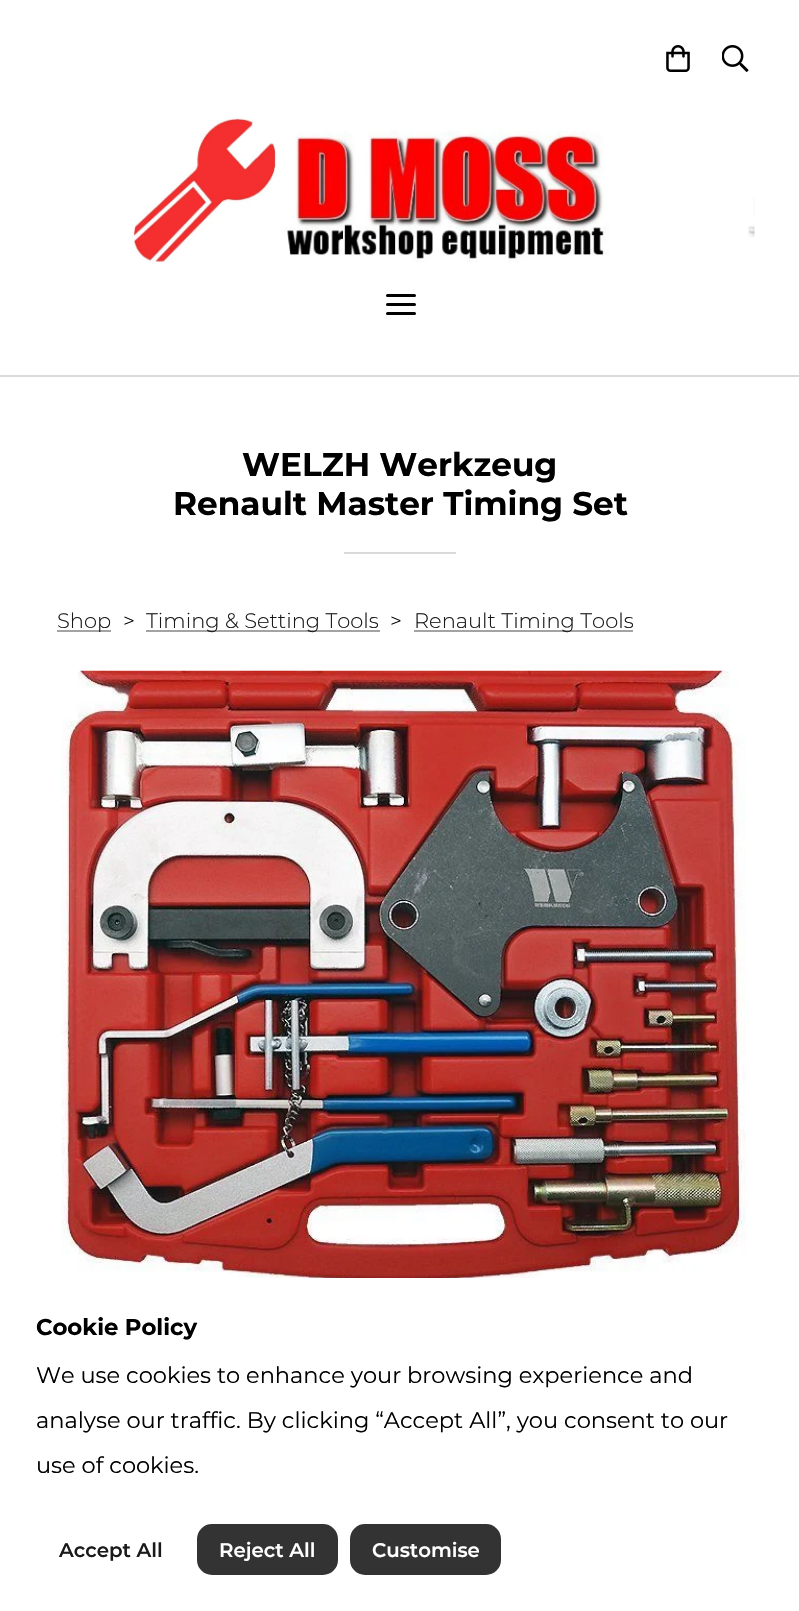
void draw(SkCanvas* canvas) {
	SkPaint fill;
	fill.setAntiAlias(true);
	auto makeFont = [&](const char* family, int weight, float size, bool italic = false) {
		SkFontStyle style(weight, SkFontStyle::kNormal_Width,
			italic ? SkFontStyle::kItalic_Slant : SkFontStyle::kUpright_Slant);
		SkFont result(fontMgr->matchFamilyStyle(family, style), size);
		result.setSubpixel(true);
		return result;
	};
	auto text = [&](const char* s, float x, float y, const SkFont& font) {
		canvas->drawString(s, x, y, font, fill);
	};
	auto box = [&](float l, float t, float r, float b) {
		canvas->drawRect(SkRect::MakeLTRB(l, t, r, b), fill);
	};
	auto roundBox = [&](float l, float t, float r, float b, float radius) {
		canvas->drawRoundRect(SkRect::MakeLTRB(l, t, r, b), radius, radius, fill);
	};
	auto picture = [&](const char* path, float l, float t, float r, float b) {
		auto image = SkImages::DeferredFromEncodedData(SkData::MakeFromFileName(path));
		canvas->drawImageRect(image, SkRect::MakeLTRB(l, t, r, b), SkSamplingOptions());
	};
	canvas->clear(0xFFFFFFFF);
	fill.setColor(0xFFDADADA);
	box(0, 375, 799, 377);
	picture("image0.png", 666, 45, 690, 72);
	picture("image1.png", 722, 45, 749, 72);
	picture("image2.png", 132, 117, 755, 263);
	fill.setColor(0xFF000000);
	roundBox(386, 303, 416, 306, 1.5f);
	roundBox(386, 294, 416, 297, 1.5f);
	roundBox(386, 312, 416, 315, 1.5f);
	fill.setColor(0xFFDADADA);
	box(344, 552, 456, 554);
	fill.setColor(0xFFA3A3A3);
	box(57, 630, 111, 632);
	box(146, 630, 380, 632);
	box(414, 630, 633, 632);
	picture("image3.png", 61, 670, 746, 1278);
	fill.setColor(0xFF333333);
	canvas->drawRoundRect(SkRect::MakeLTRB(199.5f, 1526.5f, 335.5f, 1572.5f), 12.5f, 12.5f, fill);
	fill.setStyle(SkPaint::kStroke_Style);
	fill.setStrokeWidth(5);
	canvas->drawRoundRect(SkRect::MakeLTRB(199.5f, 1526.5f, 335.5f, 1572.5f), 12.5f, 12.5f, fill);
	fill.setStyle(SkPaint::kFill_Style);
	canvas->drawRoundRect(SkRect::MakeLTRB(352.5f, 1526.5f, 498.5f, 1572.5f), 12.5f, 12.5f, fill);
	fill.setStyle(SkPaint::kStroke_Style);
	canvas->drawRoundRect(SkRect::MakeLTRB(352.5f, 1526.5f, 498.5f, 1572.5f), 12.5f, 12.5f, fill);
	auto font1 = makeFont("Montserrat", 700, 32.7f);
	fill.setStyle(SkPaint::kFill_Style);
	fill.setColor(0xFF000000);
	text("WELZH Werkzeug", 242, 476, font1);
	text("Renault Master Timing Set", 173, 515, font1);
	auto font2 = makeFont("Montserrat", 300, 21);
	fill.setColor(0xFF1A1A1A);
	text("Shop", 57, 628, font2);
	fill.setColor(0xFF000000);
	text(">", 123, 628, font2);
	fill.setColor(0xFF1A1A1A);
	text("Timing & Setting Tools", 146, 628, font2);
	fill.setColor(0xFF000000);
	text(">", 390, 628, font2);
	fill.setColor(0xFF1A1A1A);
	text("Renault Timing Tools", 414, 628, font2);
	auto font3 = makeFont("Montserrat", 700, 22.75f);
	fill.setColor(0xFF000000);
	text("Cookie Policy", 36, 1335, font3);
	auto font4 = makeFont("Montserrat", 400, 22.5f);
	text("We use cookies to enhance your browsing experience and", 36, 1383, font4);
	text("analyse our traffic. By clicking “Accept All”, you consent to our", 36, 1428, font4);
	text("use of cookies.", 36, 1473, font4);
	auto font5 = makeFont("Montserrat", 600, 19.75f);
	fill.setColor(0xFF1A1A1A);
	text("Accept All", 59, 1557, font5);
	fill.setColor(0xFFFFFFFF);
	text("Reject All", 219, 1557, font5);
	text("Customise", 372, 1557, font5);
}
